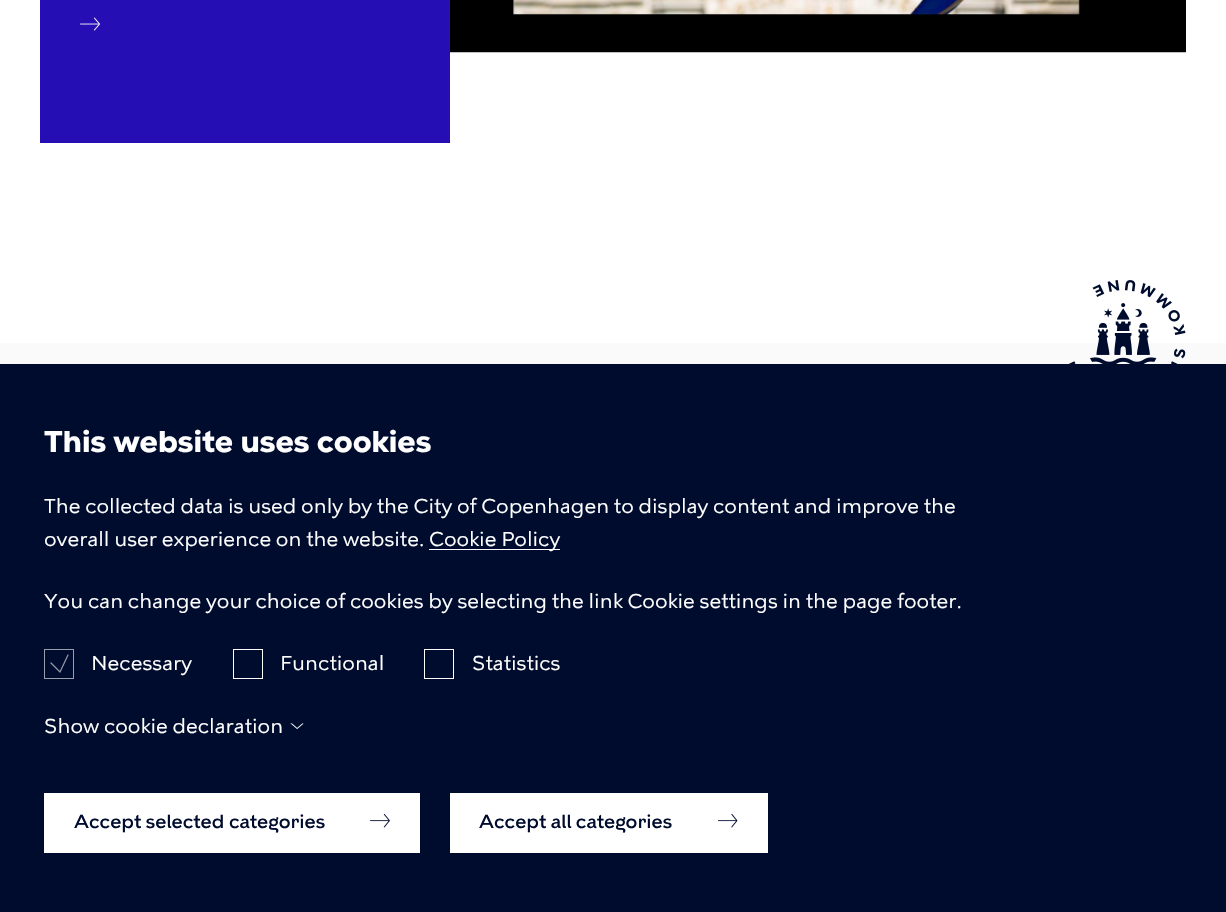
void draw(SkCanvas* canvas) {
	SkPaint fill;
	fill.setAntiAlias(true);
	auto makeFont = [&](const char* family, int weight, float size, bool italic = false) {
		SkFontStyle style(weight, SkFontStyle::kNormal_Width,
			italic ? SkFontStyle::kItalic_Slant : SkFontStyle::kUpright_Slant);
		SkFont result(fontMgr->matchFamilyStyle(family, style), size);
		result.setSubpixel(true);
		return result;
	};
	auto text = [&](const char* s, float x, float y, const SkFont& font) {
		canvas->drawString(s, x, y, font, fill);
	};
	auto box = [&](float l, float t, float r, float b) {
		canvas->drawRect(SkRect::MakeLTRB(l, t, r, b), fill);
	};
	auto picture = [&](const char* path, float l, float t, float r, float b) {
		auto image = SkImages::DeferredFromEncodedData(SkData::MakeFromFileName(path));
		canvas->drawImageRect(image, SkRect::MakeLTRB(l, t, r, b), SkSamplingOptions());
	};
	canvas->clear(0xFFFFFFFF);
	fill.setColor(0xFF260EB5);
	box(40, 0, 450, 143);
	picture("image0.png", 80, 17, 100, 31);
	picture("image1.png", 450, 0, 1186, 53);
	fill.setColor(0xFFFAFAFB);
	box(0, 343, 1226, 364);
	picture("image2.png", 1068, 280, 1186, 364);
	fill.setColor(0xFF000C2E);
	box(0, 364, 1226, 912);
	fill.setColor(0xFFFFFFFF);
	box(429, 549, 560, 550);
	fill.setStyle(SkPaint::kStroke_Style);
	fill.setStrokeWidth(1);
	fill.setColor(0xFF999EAB);
	canvas->drawRect(SkRect::MakeLTRB(44.5f, 649.5f, 73.5f, 678.5f), fill);
	fill.setStrokeWidth(1.2f);
	fill.setStrokeCap(SkPaint::kRound_Cap);
	canvas->drawPath(SkPathBuilder().moveTo(51, 663).lineTo(60, 672).lineTo(68, 655).detach(), fill);
	fill.setStrokeWidth(1);
	fill.setStrokeCap(SkPaint::kButt_Cap);
	fill.setColor(0xFFFFFFFF);
	canvas->drawRect(SkRect::MakeLTRB(233.5f, 649.5f, 262.5f, 678.5f), fill);
	canvas->drawRect(SkRect::MakeLTRB(424.5f, 649.5f, 453.5f, 678.5f), fill);
	picture("image3.png", 290, 723, 304, 729);
	fill.setStyle(SkPaint::kFill_Style);
	box(44, 793, 420, 853);
	picture("image4.png", 370, 814, 390, 828);
	box(450, 793, 768, 853);
	picture("image5.png", 718, 814, 738, 828);
	auto font1 = makeFont("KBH", 700, 30);
	text("This website uses cookies", 44, 452, font1);
	auto font2 = makeFont("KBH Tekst", 400, 20);
	text("The collected data is used only by the City of Copenhagen to display content and improve the", 44, 513, font2);
	text("overall user experience on the website.", 44, 546, font2);
	text("Cookie Policy", 429, 546, font2);
	text("You can change your choice of cookies by selecting the link Cookie settings in the page footer.", 44, 608, font2);
	text("Necessary", 91, 670, font2);
	text("Functional", 280, 670, font2);
	text("Statistics", 472, 670, font2);
	text("Show cookie declaration", 44, 733, font2);
	auto font3 = makeFont("KBH", 500, 18.75f);
	fill.setColor(0xFF000C2E);
	text("Accept selected categories", 74, 828, font3);
	text("Accept all categories", 479, 828, font3);
}
